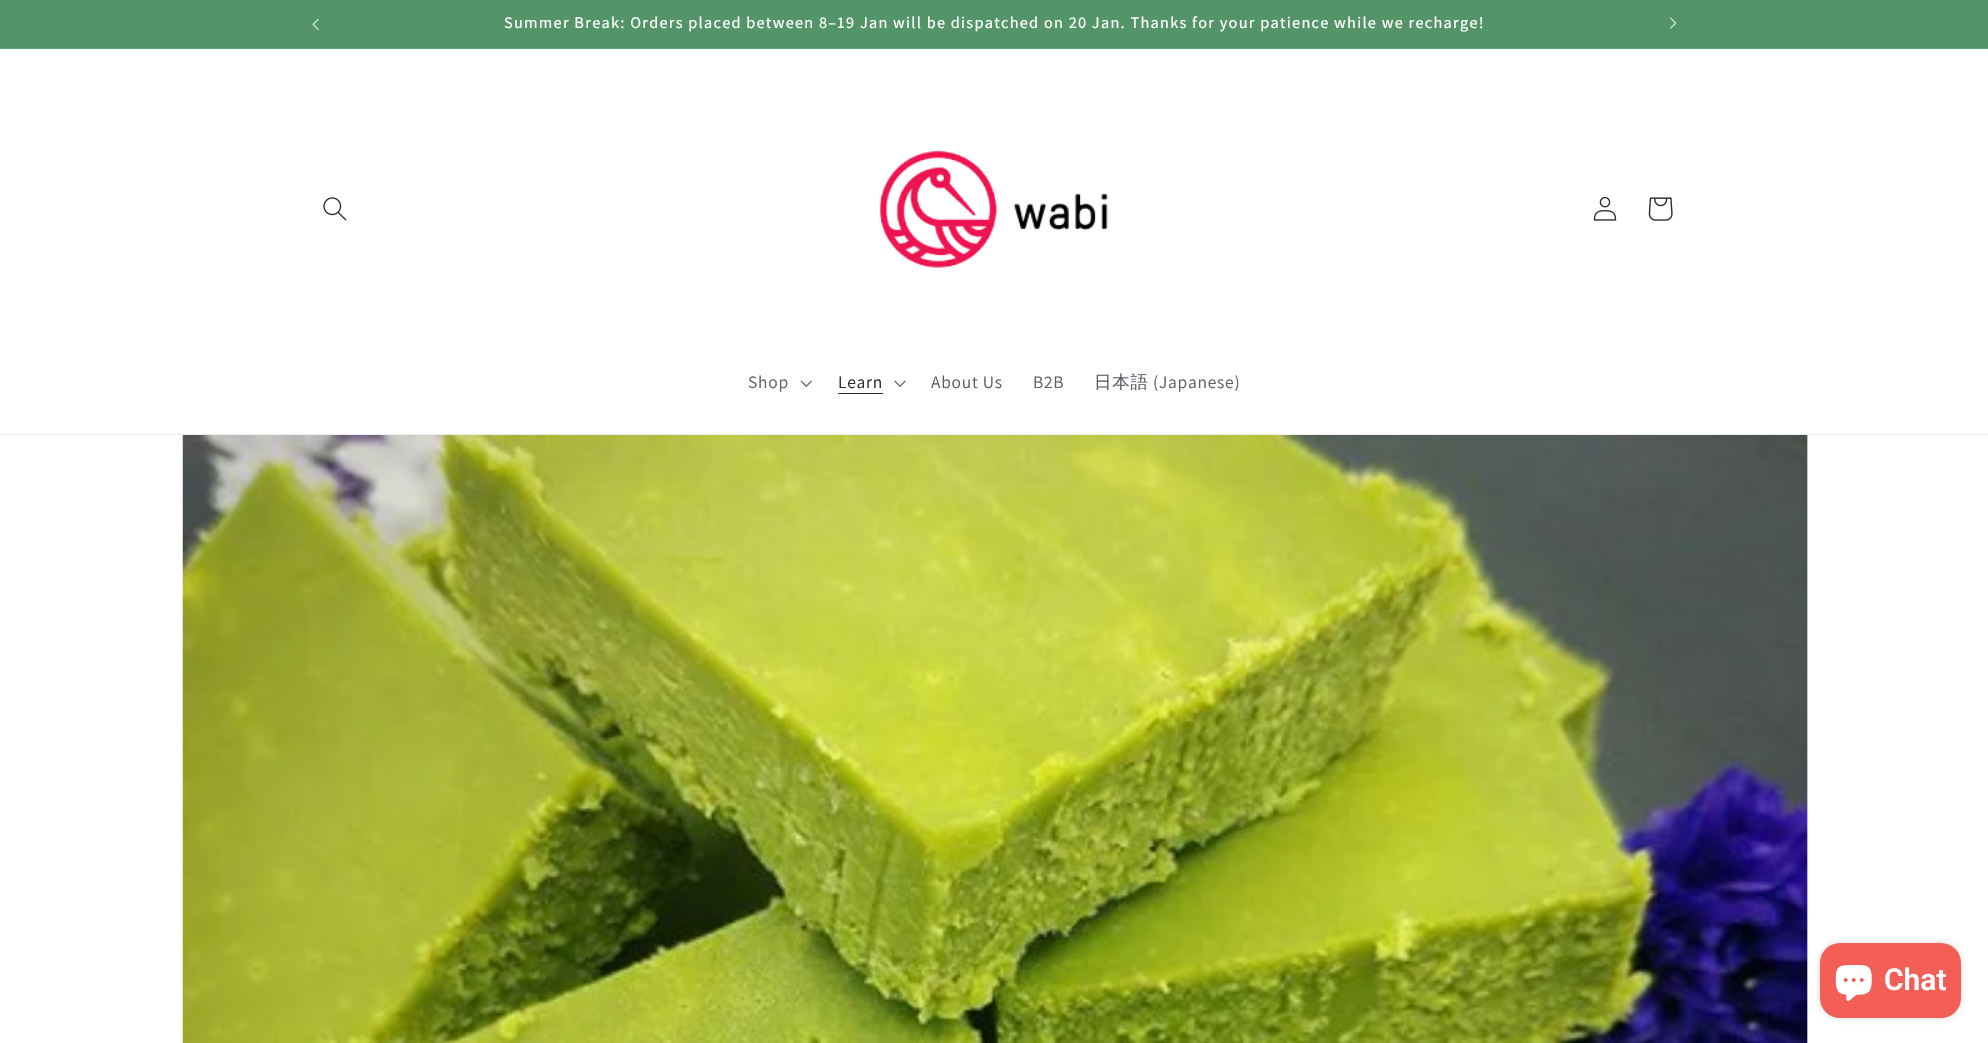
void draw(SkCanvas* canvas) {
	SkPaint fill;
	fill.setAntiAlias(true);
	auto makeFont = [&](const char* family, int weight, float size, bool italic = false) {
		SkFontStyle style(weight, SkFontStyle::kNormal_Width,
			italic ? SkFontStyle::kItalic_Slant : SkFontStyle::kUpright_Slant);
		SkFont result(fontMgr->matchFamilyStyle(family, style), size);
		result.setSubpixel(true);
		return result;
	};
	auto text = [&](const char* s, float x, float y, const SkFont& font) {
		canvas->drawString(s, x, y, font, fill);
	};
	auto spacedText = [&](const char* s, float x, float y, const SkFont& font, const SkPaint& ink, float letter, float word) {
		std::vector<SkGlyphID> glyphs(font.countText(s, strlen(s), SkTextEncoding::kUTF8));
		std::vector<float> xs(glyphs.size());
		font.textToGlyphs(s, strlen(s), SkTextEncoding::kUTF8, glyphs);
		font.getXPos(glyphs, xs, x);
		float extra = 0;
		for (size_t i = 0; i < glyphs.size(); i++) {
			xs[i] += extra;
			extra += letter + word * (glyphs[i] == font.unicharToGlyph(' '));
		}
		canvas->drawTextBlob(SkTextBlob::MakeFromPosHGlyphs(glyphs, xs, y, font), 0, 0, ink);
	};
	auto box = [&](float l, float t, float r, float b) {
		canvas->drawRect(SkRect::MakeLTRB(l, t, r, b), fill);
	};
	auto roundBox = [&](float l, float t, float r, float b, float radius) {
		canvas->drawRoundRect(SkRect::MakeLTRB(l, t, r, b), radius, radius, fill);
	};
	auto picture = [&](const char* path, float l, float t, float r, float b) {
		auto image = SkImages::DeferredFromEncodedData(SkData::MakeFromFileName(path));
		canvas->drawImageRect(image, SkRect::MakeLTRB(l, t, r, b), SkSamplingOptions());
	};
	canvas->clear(0xFFFFFFFF);
	fill.setColor(0xFF539569);
	box(0, 0, 1988, 48);
	fill.setColor(0xFF619D75);
	box(0, 48, 1988, 49);
	picture("image0.png", 312, 18, 319, 30);
	picture("image1.png", 1670, 17, 1677, 29);
	fill.setColor(0xFFEDEEEF);
	box(0, 434, 1988, 435);
	picture("image2.png", 323, 197, 347, 221);
	picture("image3.png", 879, 150, 1108, 268);
	picture("image4.png", 1593, 196, 1617, 221);
	picture("image5.png", 1648, 197, 1673, 221);
	picture("image6.png", 800, 380, 812, 387);
	fill.setColor(0xFF242833);
	box(838, 393, 883, 394);
	picture("image7.png", 894, 380, 906, 387);
	fill.setColor(0xFFEAEAEB);
	box(1807, 435, 1808, 1043);
	picture("image8.png", 182, 435, 1808, 1043);
	fill.setColor(0x26000000);
	fill.setMaskFilter(SkMaskFilter::MakeBlur(kNormal_SkBlurStyle, 3));
	canvas->drawRoundRect(SkRect::MakeLTRB(1820, 943, 1961, 1018), 20, 20, fill);
	fill.setMaskFilter(nullptr);
	fill.setColor(0xFFF35F57);
	roundBox(1820, 943, 1961, 1018, 20);
	picture("image9.png", 1835, 965, 1872, 1001);
	auto font1 = makeFont("Assistant", 500, 16.25f);
	fill.setColor(0xFFFFFFFF);
	spacedText("Summer Break: Orders placed between 8–19 Jan will be dispatched on 20 Jan. Thanks for your patience while we recharge!", 504, 28, font1, fill, 1.25f, 0);
	auto font2 = makeFont("Assistant", 400, 17.5f);
	fill.setColor(0xFF5B5E66);
	spacedText("Shop", 748, 388, font2, fill, 0.75f, 0);
	fill.setColor(0xFF242833);
	spacedText("Learn", 838, 388, font2, fill, 0.75f, 0);
	fill.setColor(0xFF5B5E66);
	spacedText("About Us", 931, 388, font2, fill, 0.75f, 0);
	spacedText("B2B", 1033, 388, font2, fill, 0.75f, 0);
	auto font3 = makeFont("WenQuanYi Zen Hei", 500, 17.5f);
	spacedText("日本語", 1094, 388, font3, fill, 0.75f, 0);
	spacedText("(Japanese)", 1153, 388, font2, fill, 0.75f, 0);
	auto font4 = makeFont("Roboto", 600, 30);
	fill.setColor(0xFFFFFFFF);
	text("Chat", 1884, 990, font4);
}
